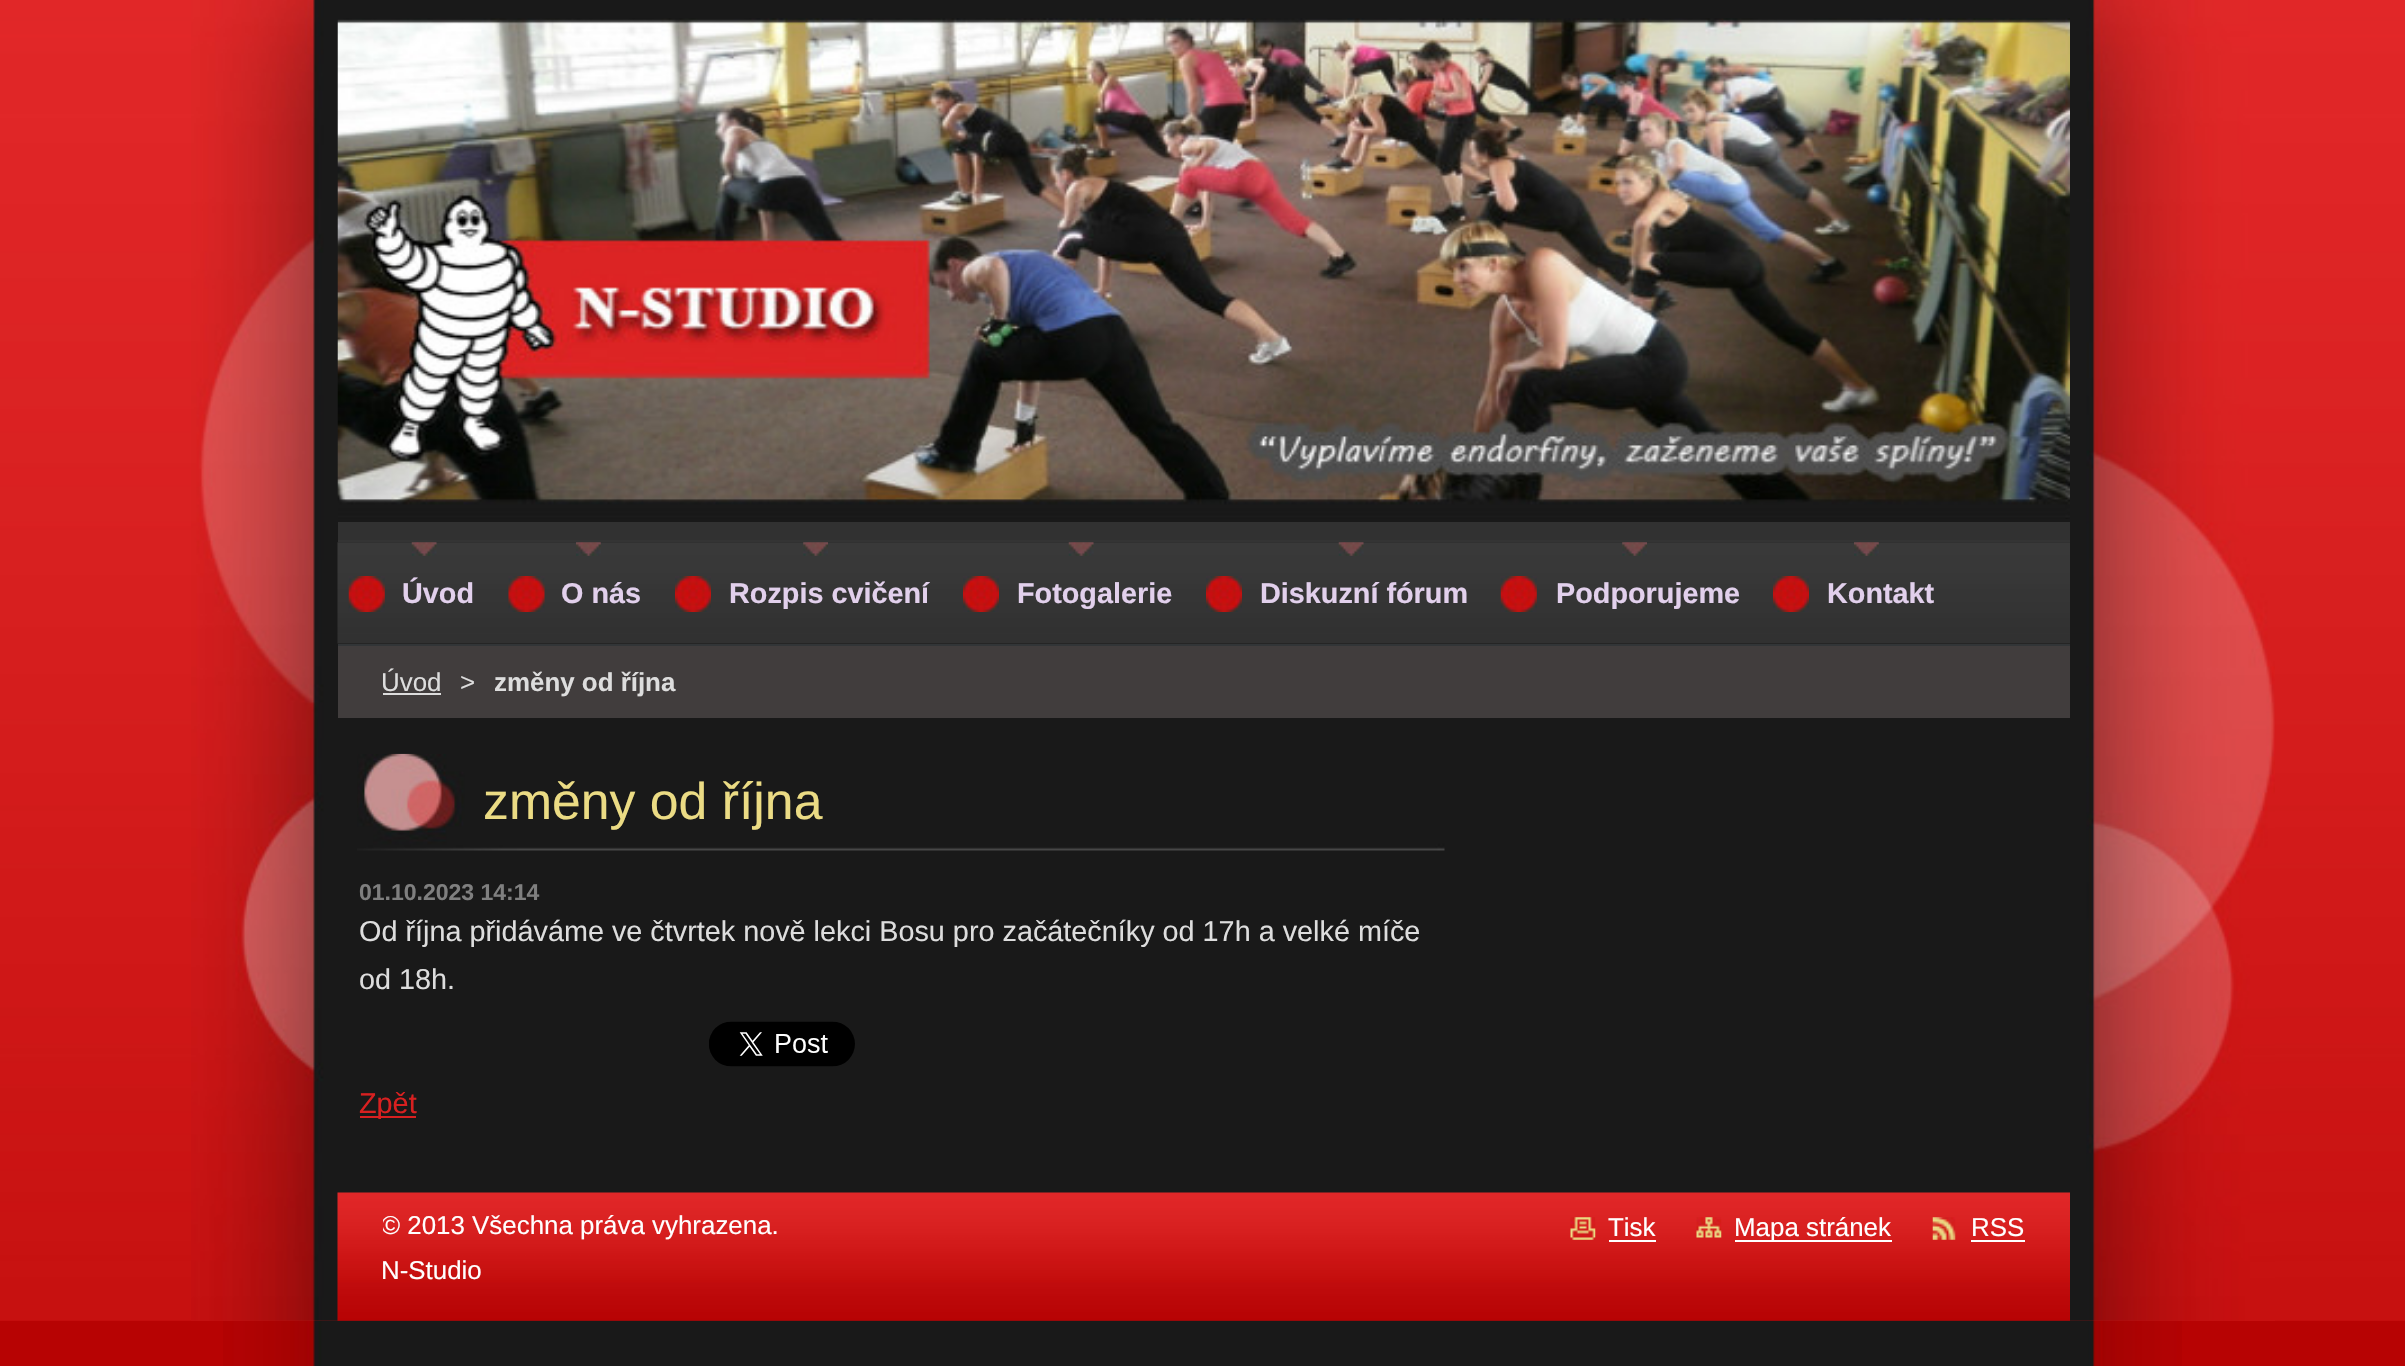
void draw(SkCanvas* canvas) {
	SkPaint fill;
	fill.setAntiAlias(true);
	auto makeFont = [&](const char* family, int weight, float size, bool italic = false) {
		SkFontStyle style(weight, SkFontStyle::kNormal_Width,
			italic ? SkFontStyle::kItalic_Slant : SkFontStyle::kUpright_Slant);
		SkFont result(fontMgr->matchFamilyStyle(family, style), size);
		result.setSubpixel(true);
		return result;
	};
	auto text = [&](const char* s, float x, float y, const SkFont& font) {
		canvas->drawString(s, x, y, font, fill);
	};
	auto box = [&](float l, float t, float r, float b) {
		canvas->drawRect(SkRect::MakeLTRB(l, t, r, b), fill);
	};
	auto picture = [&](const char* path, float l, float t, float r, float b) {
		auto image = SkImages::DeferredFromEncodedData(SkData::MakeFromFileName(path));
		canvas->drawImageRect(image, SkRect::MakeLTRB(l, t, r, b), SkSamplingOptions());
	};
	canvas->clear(0xFFB70303);
	picture("image0.png", 223, 1320, 2182, 1366);
	picture("image1.png", 223, 1320, 2182, 1321);
	picture("image2.png", 0, 0, 2405, 1321);
	picture("image3.png", 191, 0, 2275, 1321);
	fill.setColor(0xFF313131);
	box(338, 522, 2070, 540);
	picture("image4.png", 337, 18, 2070, 519);
	picture("image5.png", 337, 542, 2070, 644);
	fill.setColor(0xFF343434);
	box(338, 540, 2070, 542);
	fill.setColor(0xFF323537);
	box(338, 644, 2070, 646);
	picture("image6.png", 348, 576, 385, 612);
	picture("image7.png", 411, 542, 437, 556);
	picture("image8.png", 508, 576, 545, 612);
	picture("image9.png", 576, 542, 601, 556);
	picture("image10.png", 675, 576, 711, 612);
	picture("image11.png", 803, 542, 828, 556);
	picture("image10.png", 963, 576, 999, 612);
	picture("image12.png", 1068, 542, 1094, 556);
	picture("image10.png", 1206, 576, 1242, 612);
	picture("image12.png", 1338, 542, 1364, 556);
	picture("image13.png", 1500, 576, 1537, 612);
	picture("image11.png", 1622, 542, 1647, 556);
	picture("image14.png", 1773, 576, 1809, 612);
	picture("image9.png", 1854, 542, 1879, 556);
	fill.setColor(0xFF413D3D);
	box(338, 646, 2070, 718);
	fill.setColor(0xFFDDDDDD);
	box(383, 693, 441, 695);
	picture("image15.png", 357, 753, 1445, 851);
	picture("image16.png", 709, 1021, 855, 1067);
	fill.setColor(0xFFD82020);
	box(360, 1116, 416, 1118);
	picture("image17.png", 337, 1192, 2070, 1321);
	picture("image18.png", 1570, 1217, 1596, 1240);
	fill.setColor(0xFFFFFFFF);
	box(1609, 1240, 1656, 1242);
	picture("image19.png", 1696, 1217, 1722, 1238);
	box(1735, 1240, 1892, 1242);
	picture("image20.png", 1932, 1217, 1956, 1240);
	box(1971, 1240, 2025, 1242);
	auto font1 = makeFont("Liberation Sans", 700, 28.8f);
	fill.setColor(0xFFE2D0EC);
	text("Úvod", 402, 603, font1);
	text("O nás", 561, 603, font1);
	text("Rozpis cvičení", 729, 603, font1);
	text("Fotogalerie", 1017, 603, font1);
	text("Diskuzní fórum", 1260, 603, font1);
	text("Podporujeme", 1556, 603, font1);
	text("Kontakt", 1827, 603, font1);
	auto font2 = makeFont("Liberation Sans", 400, 25.9f);
	fill.setColor(0xFFDDDDDD);
	text("Úvod", 381, 691, font2);
	text(">", 460, 691, font2);
	auto font3 = makeFont("Liberation Sans", 700, 25.9f);
	text("změny od října", 494, 691, font3);
	auto font4 = makeFont("Liberation Sans", 400, 51.75f);
	fill.setColor(0xFFEBDB84);
	text("změny od října", 483, 819, font4);
	auto font5 = makeFont("Liberation Sans", 700, 23);
	fill.setColor(0xFF7F7F7F);
	text("01.10.2023 14:14", 359, 900, font5);
	auto font6 = makeFont("Liberation Sans", 400, 28.8f);
	fill.setColor(0xFFDDDDDD);
	text("Od října přidáváme ve čtvrtek nově lekci Bosu pro začátečníky od 17h a velké míče", 359, 941, font6);
	text("od 18h.", 359, 989, font6);
	fill.setColor(0xFFD82020);
	text("Zpět", 359, 1113, font6);
	canvas->save();
	canvas->clipRect(SkRect::MakeLTRB(383, 1208, 1395, 1253));
	fill.setColor(0xFFFFFFFF);
	text("© 2013 Všechna práva vyhrazena.", 381, 1234, font2);
	canvas->restore();
	text("N-Studio", 381, 1279, font2);
	text("Tisk", 1608, 1236, font2);
	text("Mapa stránek", 1734, 1236, font2);
	text("RSS", 1971, 1236, font2);
}
